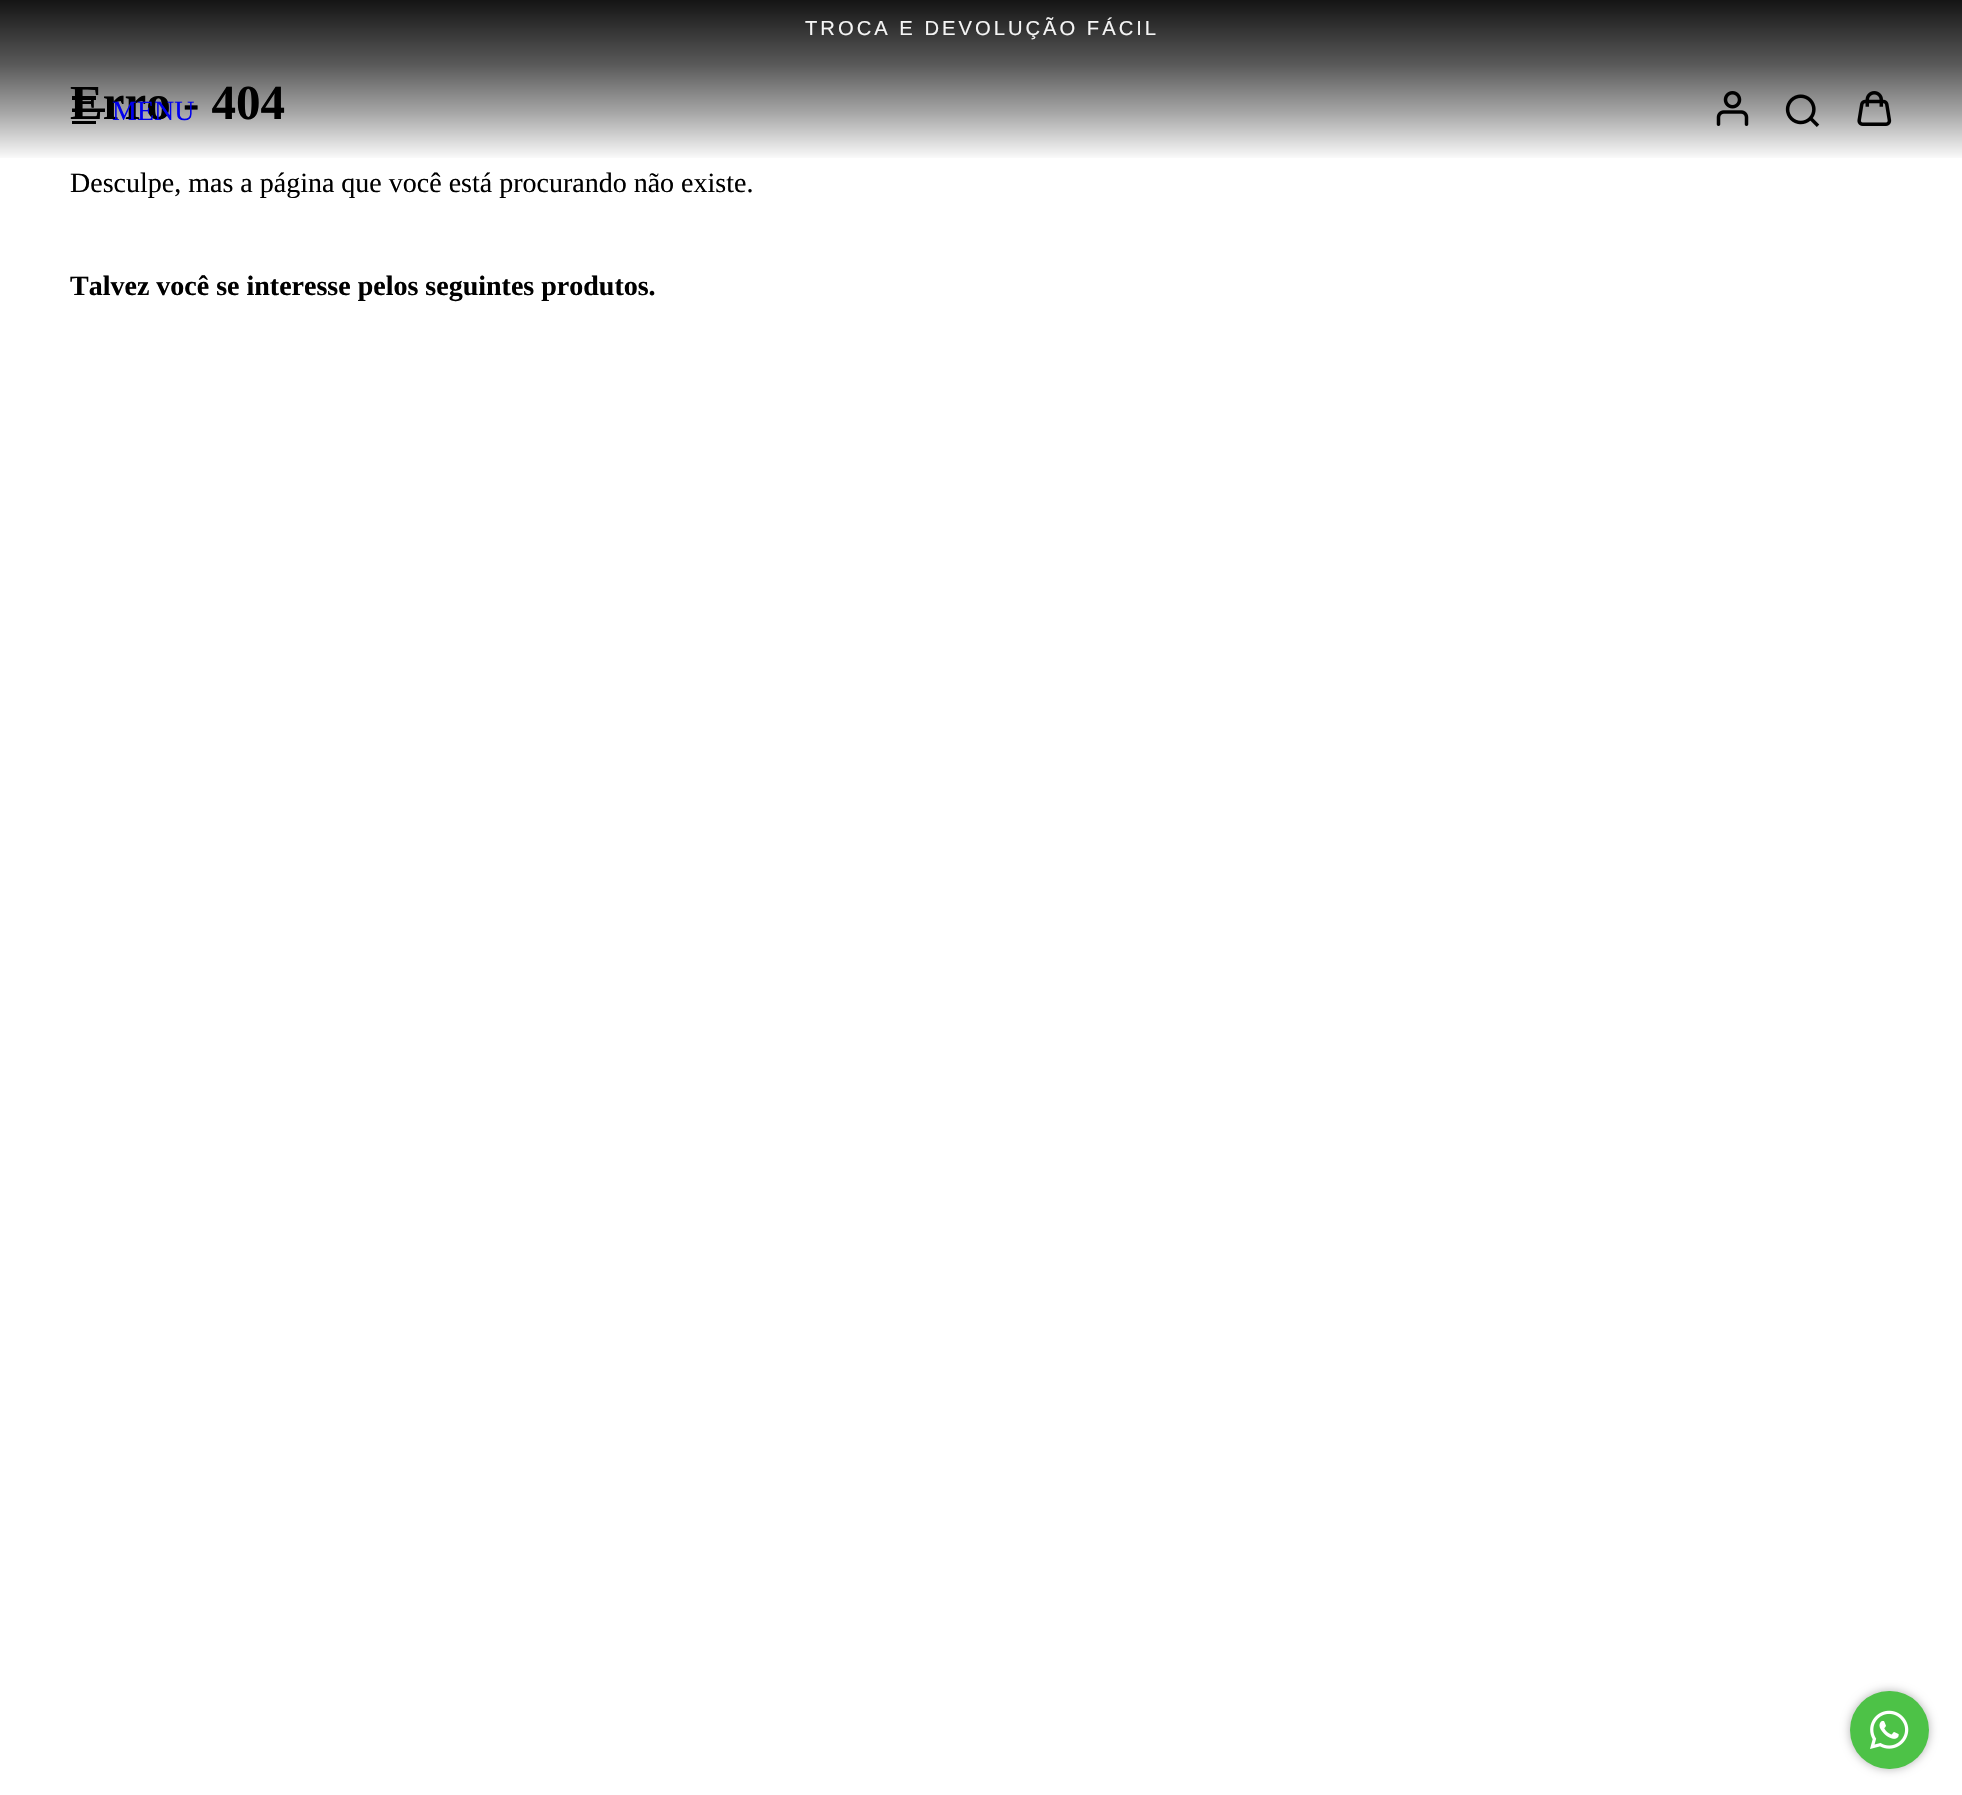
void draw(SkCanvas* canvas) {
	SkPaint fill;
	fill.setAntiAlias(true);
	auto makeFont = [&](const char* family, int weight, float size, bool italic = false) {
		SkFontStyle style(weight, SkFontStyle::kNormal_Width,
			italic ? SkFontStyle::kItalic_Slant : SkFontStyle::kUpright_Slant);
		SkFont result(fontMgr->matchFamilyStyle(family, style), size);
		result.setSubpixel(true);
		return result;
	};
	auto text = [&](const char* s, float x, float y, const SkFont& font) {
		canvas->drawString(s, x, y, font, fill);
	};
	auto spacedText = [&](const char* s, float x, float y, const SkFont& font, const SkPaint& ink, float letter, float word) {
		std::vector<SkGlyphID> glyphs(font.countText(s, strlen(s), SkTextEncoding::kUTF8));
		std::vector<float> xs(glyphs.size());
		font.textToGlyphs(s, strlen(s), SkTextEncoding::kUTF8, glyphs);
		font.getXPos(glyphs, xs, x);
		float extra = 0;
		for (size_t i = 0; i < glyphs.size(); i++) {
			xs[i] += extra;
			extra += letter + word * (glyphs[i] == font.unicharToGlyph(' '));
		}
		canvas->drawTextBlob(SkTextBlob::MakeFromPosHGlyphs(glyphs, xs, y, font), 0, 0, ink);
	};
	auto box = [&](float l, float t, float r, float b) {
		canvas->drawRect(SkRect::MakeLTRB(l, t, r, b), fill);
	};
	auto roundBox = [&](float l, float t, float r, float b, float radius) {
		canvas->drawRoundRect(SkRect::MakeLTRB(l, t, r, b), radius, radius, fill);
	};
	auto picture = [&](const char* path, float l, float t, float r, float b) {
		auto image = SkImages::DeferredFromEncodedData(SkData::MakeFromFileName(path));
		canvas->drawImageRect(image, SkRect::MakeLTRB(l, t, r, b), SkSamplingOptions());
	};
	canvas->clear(0xFFFFFFFF);
	fill.setColor(0x4D000000);
	fill.setMaskFilter(SkMaskFilter::MakeBlur(kNormal_SkBlurStyle, 5));
	canvas->drawRoundRect(SkRect::MakeLTRB(1850, 1691, 1929, 1769), 39, 39, fill);
	fill.setMaskFilter(nullptr);
	fill.setColor(0xFF4DC247);
	roundBox(1850, 1691, 1929, 1769, 39);
	picture("image3.png", 1870, 1710, 1909, 1749);
	auto font1 = makeFont("Liberation Serif", 700, 49);
	fill.setColor(0xFF000000);
	text("Erro - 404", 70, 119, font1);
	{
		const SkColor colors[] = {0xEB000000, 0xA6000000, 0x59000000, 0x00000000};
		const float stops[] = {0, 0.4f, 0.7f, 1};
		const SkPoint ends[] = {{982, 0}, {982, 161}};
		fill.setShader(SkGradientShader::MakeLinear(ends, colors, stops, 4, SkTileMode::kClamp));
		fill.setAlpha(255);
	}
	box(0, 0, 1962, 158);
	auto font2 = makeFont("Liberation Sans", 400, 20.2f);
	fill.setShader(nullptr);
	fill.setColor(0xFFF5F5F5);
	spacedText("TROCA E DEVOLUÇÃO FÁCIL", 805, 35, font2, fill, 3, 0);
	picture("image2.png", 1857, 91, 1892, 126);
	picture("image1.png", 1785, 94, 1820, 127);
	picture("image0.png", 1716, 91, 1749, 126);
	fill.setColor(0xFF000000);
	canvas->drawPath(SkPathBuilder().moveTo(72, 96).lineTo(96, 96).lineTo(96, 100).lineTo(72, 100).close().moveTo(72, 108.5f).lineTo(105, 108.5f).lineTo(105, 112).lineTo(72, 112).close().moveTo(72, 121).lineTo(96, 121).lineTo(96, 124).lineTo(72, 124).close().detach(), fill);
	auto font3 = makeFont("Liberation Serif", 400, 28);
	fill.setColor(0xFF0000EE);
	text("MENU", 112, 120, font3);
	fill.setColor(0xFF000000);
	text("Desculpe, mas a página que você está procurando não existe.", 70, 192, font3);
	auto font4 = makeFont("Liberation Serif", 700, 28);
	text("Talvez você se interesse pelos seguintes produtos.", 70, 295, font4);
}
